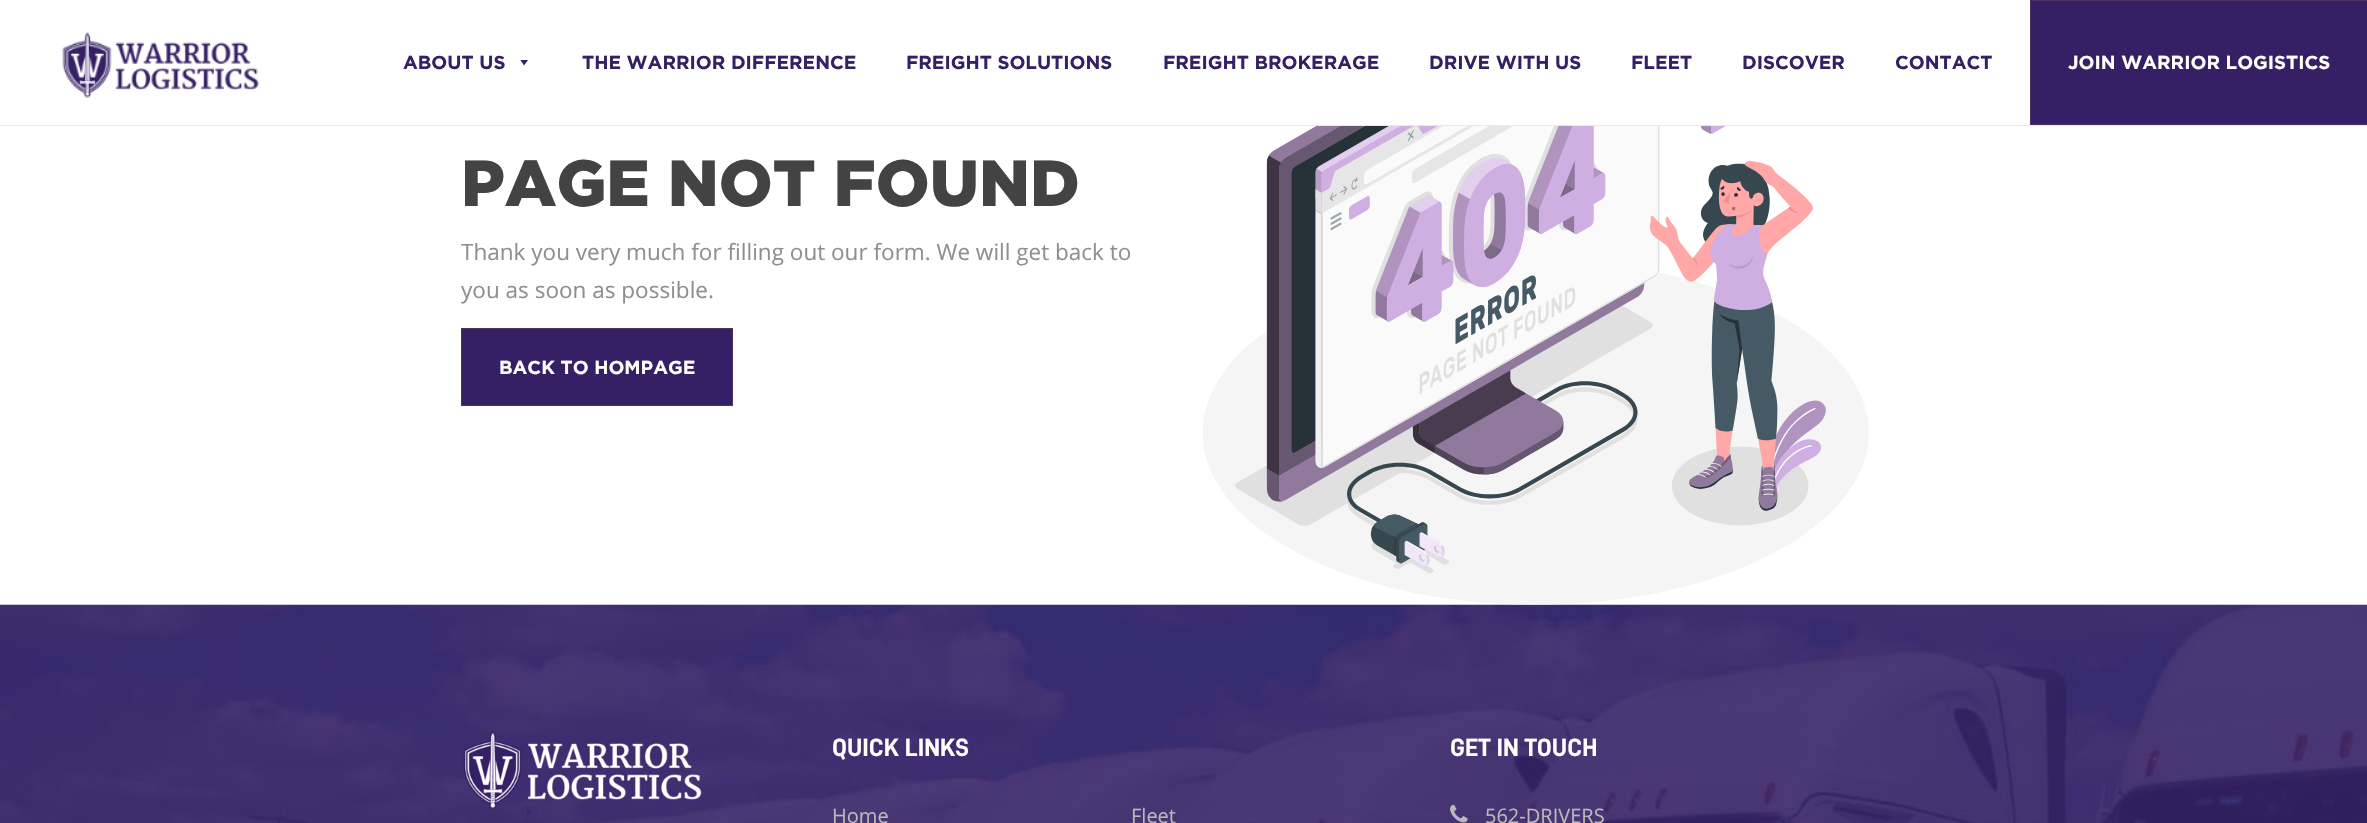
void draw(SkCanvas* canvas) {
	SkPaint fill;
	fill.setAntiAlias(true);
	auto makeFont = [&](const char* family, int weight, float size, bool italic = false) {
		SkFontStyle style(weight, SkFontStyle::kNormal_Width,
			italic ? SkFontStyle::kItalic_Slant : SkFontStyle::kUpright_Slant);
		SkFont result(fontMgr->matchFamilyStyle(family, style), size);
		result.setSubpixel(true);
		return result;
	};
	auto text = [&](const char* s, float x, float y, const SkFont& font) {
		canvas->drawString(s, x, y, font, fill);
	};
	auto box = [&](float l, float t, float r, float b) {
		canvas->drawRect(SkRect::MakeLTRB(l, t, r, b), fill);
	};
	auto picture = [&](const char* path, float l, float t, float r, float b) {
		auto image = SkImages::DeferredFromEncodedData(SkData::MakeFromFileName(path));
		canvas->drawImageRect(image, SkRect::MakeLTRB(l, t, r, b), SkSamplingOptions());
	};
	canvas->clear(0xFFFFFFFF);
	fill.setColor(0xFFE9E9E9);
	box(0, 125, 2367, 126);
	picture("image0.png", 62, 32, 259, 98);
	fill.setColor(0xFF351F65);
	canvas->drawPath(SkPathBuilder().moveTo(528, 60).lineTo(524, 65.5f).lineTo(520.5f, 60).close().detach(), fill);
	canvas->drawRect(SkRect::MakeLTRB(2030.5f, 0.5f, 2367.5f, 124.5f), fill);
	fill.setStyle(SkPaint::kStroke_Style);
	fill.setStrokeWidth(1);
	fill.setColor(0xFF4F315E);
	canvas->drawRect(SkRect::MakeLTRB(2030.5f, 0.5f, 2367.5f, 124.5f), fill);
	fill.setStyle(SkPaint::kFill_Style);
	fill.setColor(0xFF351F65);
	canvas->drawRect(SkRect::MakeLTRB(461.5f, 328.5f, 732.5f, 405.5f), fill);
	fill.setStyle(SkPaint::kStroke_Style);
	fill.setColor(0xFF4F315E);
	canvas->drawRect(SkRect::MakeLTRB(461.5f, 328.5f, 732.5f, 405.5f), fill);
	picture("image2.png", 0, 604, 2367, 823);
	picture("image1.png", 1203, 126, 1869, 605);
	picture("image3.png", 463, 731, 702, 809);
	picture("image4.png", 1450, 804, 1468, 823);
	auto font1 = makeFont("Gotham", 700, 18.75f);
	fill.setStyle(SkPaint::kFill_Style);
	fill.setColor(0xFF351F65);
	text("ABOUT US", 403, 69, font1);
	text("THE WARRIOR DIFFERENCE", 582, 69, font1);
	text("FREIGHT SOLUTIONS", 906, 69, font1);
	text("FREIGHT BROKERAGE", 1163, 69, font1);
	text("DRIVE WITH US", 1429, 69, font1);
	text("FLEET", 1631, 69, font1);
	text("DISCOVER", 1742, 69, font1);
	text("CONTACT", 1895, 69, font1);
	fill.setColor(0xFFFFFFFF);
	text("JOIN WARRIOR LOGISTICS", 2068, 69, font1);
	auto font2 = makeFont("Gotham", 900, 65);
	fill.setColor(0xFF434343);
	text("PAGE NOT FOUND", 461, 206, font2);
	auto font3 = makeFont("Open Sans", 400, 22.5f);
	fill.setColor(0xFF8F8F8F);
	text("Thank you very much for filling out our form. We will get back to", 461, 260, font3);
	text("you as soon as possible.", 461, 298, font3);
	fill.setColor(0xFFFFFFFF);
	text("BACK TO HOMPAGE", 499, 374, font1);
	auto font4 = makeFont("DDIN", 700, 25);
	text("QUICK LINKS", 832, 756, font4);
	auto font5 = makeFont("Open Sans", 400, 20);
	fill.setColor(0xFFB9B9B9);
	text("Home", 832, 823, font5);
	text("Fleet", 1131, 823, font5);
	fill.setColor(0xFFFFFFFF);
	text("GET IN TOUCH", 1450, 756, font4);
	fill.setColor(0xFFB9B9B9);
	text("562-DRIVERS", 1485, 823, font5);
}
